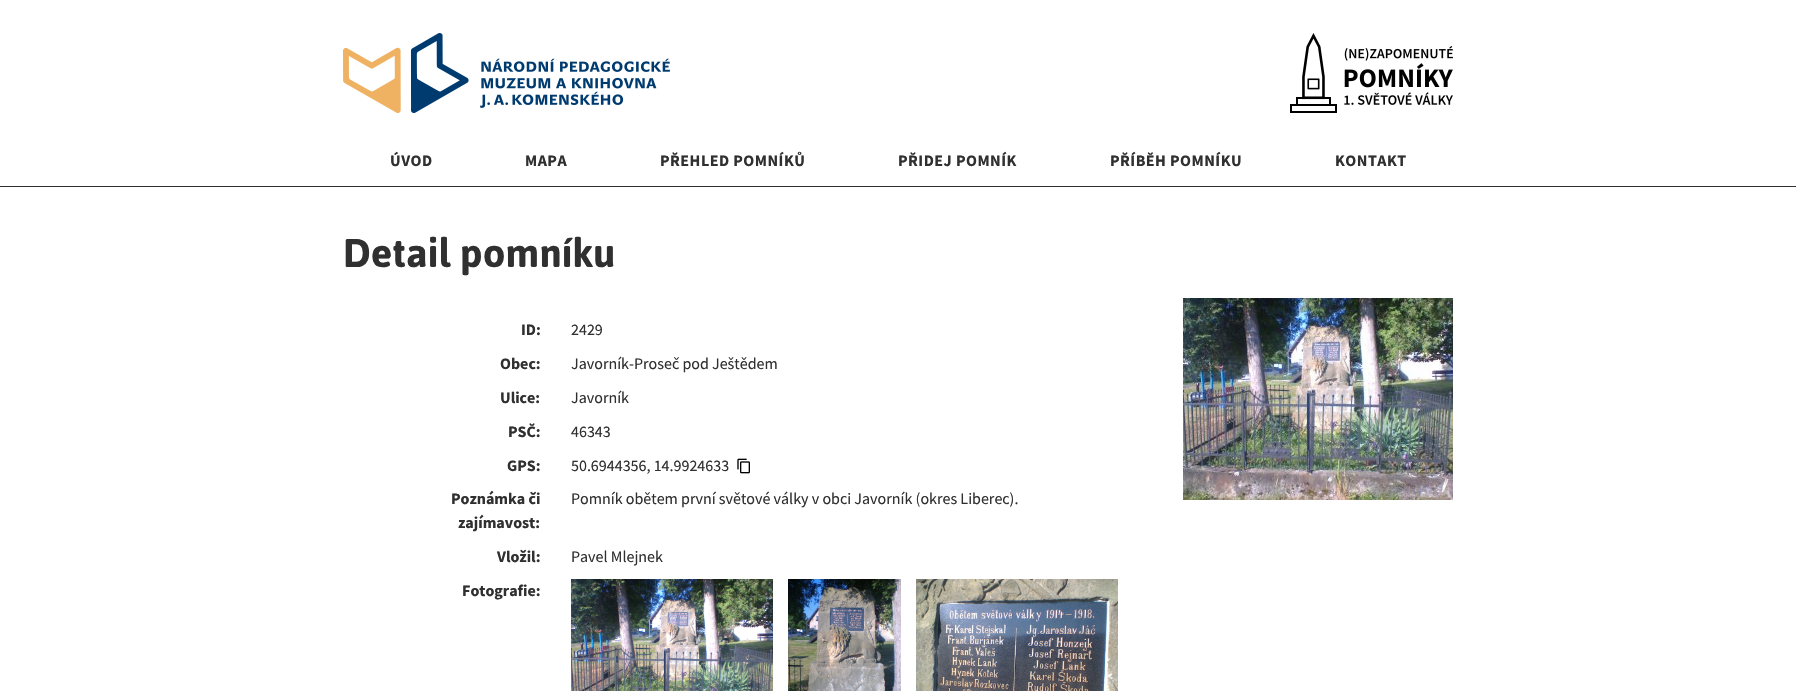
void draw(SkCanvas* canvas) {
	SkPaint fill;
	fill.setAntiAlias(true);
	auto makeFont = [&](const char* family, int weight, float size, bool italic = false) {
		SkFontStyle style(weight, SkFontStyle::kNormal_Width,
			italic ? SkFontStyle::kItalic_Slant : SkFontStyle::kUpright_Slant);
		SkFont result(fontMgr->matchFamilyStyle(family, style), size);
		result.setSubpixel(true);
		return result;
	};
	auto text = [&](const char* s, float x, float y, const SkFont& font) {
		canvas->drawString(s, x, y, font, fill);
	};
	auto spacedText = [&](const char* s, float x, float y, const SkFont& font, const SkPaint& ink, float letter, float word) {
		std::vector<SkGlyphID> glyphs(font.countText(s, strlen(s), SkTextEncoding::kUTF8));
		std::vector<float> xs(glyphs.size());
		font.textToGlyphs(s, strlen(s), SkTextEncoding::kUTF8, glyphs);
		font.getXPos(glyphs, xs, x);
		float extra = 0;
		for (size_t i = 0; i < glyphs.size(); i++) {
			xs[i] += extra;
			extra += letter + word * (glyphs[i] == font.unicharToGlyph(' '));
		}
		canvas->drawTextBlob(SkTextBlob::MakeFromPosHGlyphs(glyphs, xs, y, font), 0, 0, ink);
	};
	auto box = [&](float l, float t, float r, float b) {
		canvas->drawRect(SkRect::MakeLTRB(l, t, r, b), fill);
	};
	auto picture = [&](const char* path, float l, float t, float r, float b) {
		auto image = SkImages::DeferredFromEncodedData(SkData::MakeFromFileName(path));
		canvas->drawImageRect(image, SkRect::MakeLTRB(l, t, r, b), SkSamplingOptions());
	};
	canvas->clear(0xFFFFFFFF);
	picture("image0.png", 343, 33, 670, 113);
	picture("image1.png", 1290, 33, 1453, 113);
	fill.setColor(0xFF303030);
	box(0, 186, 1796, 187);
	picture("image2.png", 737, 458, 750, 474);
	picture("image3.png", 571, 579, 773, 691);
	picture("image4.png", 788, 579, 901, 691);
	picture("image5.png", 916, 579, 1118, 691);
	picture("image6.png", 1183, 298, 1453, 500);
	auto font1 = makeFont("Source Sans Pro", 700, 16);
	spacedText("ÚVOD", 390, 166, font1, fill, 0.5f, 0);
	spacedText("MAPA", 525, 166, font1, fill, 0.5f, 0);
	spacedText("PŘEHLED POMNÍKŮ", 660, 166, font1, fill, 0.5f, 0);
	spacedText("PŘIDEJ POMNÍK", 898, 166, font1, fill, 0.5f, 0);
	spacedText("PŘÍBĚH POMNÍKU", 1110, 166, font1, fill, 0.5f, 0);
	spacedText("KONTAKT", 1335, 166, font1, fill, 0.5f, 0);
	auto font2 = makeFont("Asap", 700, 40);
	text("Detail pomníku", 343, 267, font2);
	text("ID:", 521, 335, font1);
	auto font3 = makeFont("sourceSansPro", 400, 16);
	text("2429", 571, 335, font3);
	text("Obec:", 500, 369, font1);
	text("Javorník-Proseč pod Ještědem", 571, 369, font3);
	text("Ulice:", 500, 403, font1);
	text("Javorník", 571, 403, font3);
	text("PSČ:", 508, 437, font1);
	text("46343", 571, 437, font3);
	text("GPS:", 507, 471, font1);
	text("50.6944356, 14.9924633", 571, 471, font3);
	text("Poznámka či", 451, 504, font1);
	text("zajímavost:", 458, 528, font1);
	text("Pomník obětem první světové války v obci Javorník (okres Liberec).", 571, 504, font3);
	text("Vložil:", 497, 562, font1);
	text("Pavel Mlejnek", 571, 562, font3);
	text("Fotografie:", 462, 596, font1);
}
